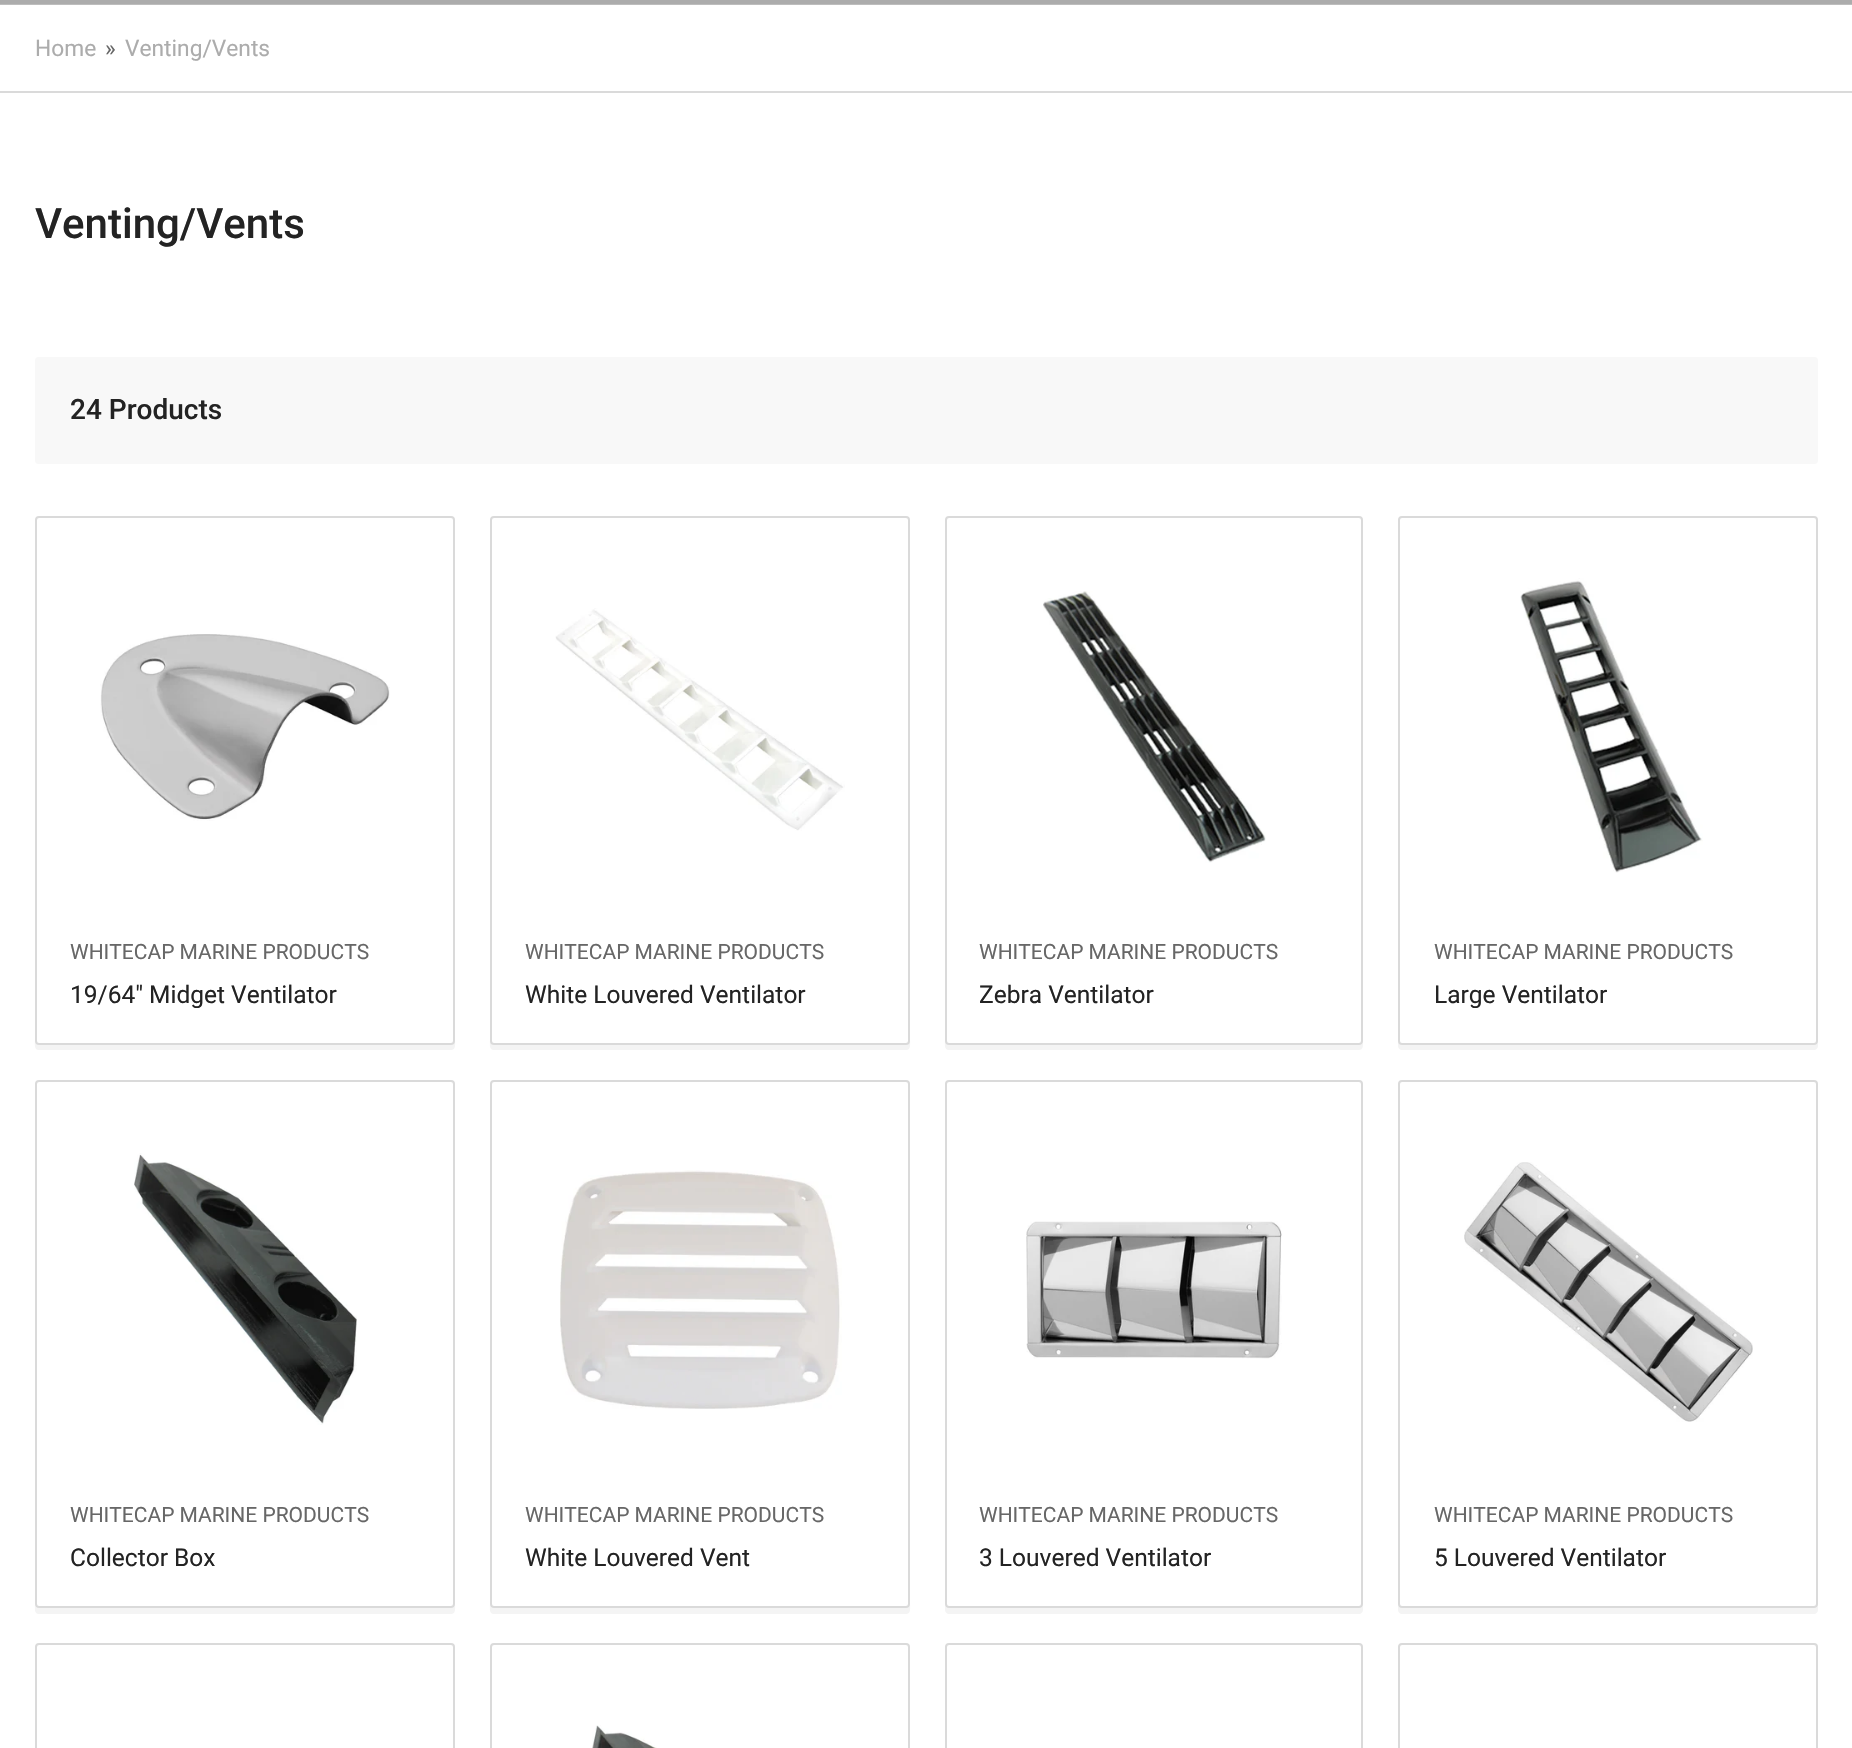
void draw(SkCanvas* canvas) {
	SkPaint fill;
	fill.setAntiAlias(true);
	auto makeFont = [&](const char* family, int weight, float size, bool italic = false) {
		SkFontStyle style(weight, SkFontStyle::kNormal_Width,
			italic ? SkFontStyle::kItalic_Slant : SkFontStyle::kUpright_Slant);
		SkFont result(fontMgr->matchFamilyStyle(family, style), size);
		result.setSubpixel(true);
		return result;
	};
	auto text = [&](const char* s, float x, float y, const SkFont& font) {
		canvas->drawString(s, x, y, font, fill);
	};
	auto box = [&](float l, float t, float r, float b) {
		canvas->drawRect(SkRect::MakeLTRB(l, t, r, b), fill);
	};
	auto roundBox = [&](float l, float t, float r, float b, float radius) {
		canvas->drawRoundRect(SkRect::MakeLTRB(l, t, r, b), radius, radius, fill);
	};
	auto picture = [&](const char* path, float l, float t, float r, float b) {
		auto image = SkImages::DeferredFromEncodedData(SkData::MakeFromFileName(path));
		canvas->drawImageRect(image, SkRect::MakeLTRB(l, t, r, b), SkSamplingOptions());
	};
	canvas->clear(0xFFFFFFFF);
	fill.setColor(0xFFACACAC);
	box(0, 0, 1852, 4);
	fill.setColor(0xFFBDBDBD);
	box(0, 4, 1852, 5);
	fill.setColor(0xFFDADADA);
	box(0, 91, 1852, 93);
	fill.setColor(0xFFF8F8F8);
	roundBox(35, 357, 1818, 464, 4);
	fill.setColor(0xFFF4F4F4);
	canvas->drawPath(SkPathBuilder().moveTo(35, 1041).cubicTo(35, 1044, 34, 1049, 38, 1050).lineTo(451, 1050).cubicTo(456, 1050, 455, 1044, 455, 1041).cubicTo(455, 1043, 453, 1045, 452, 1045).lineTo(38, 1045).cubicTo(37, 1045, 35, 1043, 35, 1041).close().detach(), fill);
	fill.setColor(0xFFFFFFFF);
	canvas->drawRoundRect(SkRect::MakeLTRB(36, 517, 454, 1044), 3, 3, fill);
	fill.setStyle(SkPaint::kStroke_Style);
	fill.setStrokeWidth(2);
	fill.setColor(0xFFDADADA);
	canvas->drawRoundRect(SkRect::MakeLTRB(36, 517, 454, 1044), 3, 3, fill);
	picture("image0.png", 100, 634, 390, 821);
	fill.setStyle(SkPaint::kFill_Style);
	fill.setColor(0xFFF4F4F4);
	canvas->drawPath(SkPathBuilder().moveTo(490, 1041).cubicTo(490, 1044, 489, 1050, 494, 1050).lineTo(907, 1050).cubicTo(911, 1049, 910, 1044, 910, 1041).cubicTo(910, 1043, 908, 1045, 906, 1045).lineTo(494, 1045).cubicTo(492, 1045, 490, 1043, 490, 1041).close().detach(), fill);
	fill.setColor(0xFFFFFFFF);
	canvas->drawRoundRect(SkRect::MakeLTRB(491, 517, 909, 1044), 3, 3, fill);
	fill.setStyle(SkPaint::kStroke_Style);
	fill.setColor(0xFFDADADA);
	canvas->drawRoundRect(SkRect::MakeLTRB(491, 517, 909, 1044), 3, 3, fill);
	picture("image1.png", 555, 608, 845, 831);
	fill.setStyle(SkPaint::kFill_Style);
	fill.setColor(0xFFF4F4F4);
	canvas->drawPath(SkPathBuilder().moveTo(945, 1041).cubicTo(945, 1044, 944, 1050, 949, 1050).lineTo(1359, 1050).cubicTo(1363, 1050, 1363, 1046, 1363, 1043).cubicTo(1362, 1044, 1361, 1045, 1360, 1045).lineTo(948, 1045).cubicTo(947, 1045, 945, 1043, 945, 1041).close().detach(), fill);
	fill.setColor(0xFFFFFFFF);
	canvas->drawRoundRect(SkRect::MakeLTRB(946, 517, 1362, 1044), 3, 3, fill);
	fill.setStyle(SkPaint::kStroke_Style);
	fill.setColor(0xFFDADADA);
	canvas->drawRoundRect(SkRect::MakeLTRB(946, 517, 1362, 1044), 3, 3, fill);
	picture("image2.png", 1043, 591, 1266, 863);
	fill.setStyle(SkPaint::kFill_Style);
	fill.setColor(0xFFF4F4F4);
	canvas->drawPath(SkPathBuilder().moveTo(1398, 525).lineTo(1398, 1046).cubicTo(1398, 1048, 1400, 1050, 1402, 1050).lineTo(1814, 1050).cubicTo(1816, 1050, 1818, 1048, 1818, 1046).lineTo(1818, 1043).cubicTo(1817, 1044, 1816, 1045, 1815, 1045).lineTo(1402, 1045).cubicTo(1400, 1045, 1398, 1043, 1398, 1041).close().detach(), fill);
	fill.setColor(0xFFFFFFFF);
	canvas->drawRoundRect(SkRect::MakeLTRB(1399, 517, 1817, 1044), 3, 3, fill);
	fill.setStyle(SkPaint::kStroke_Style);
	fill.setColor(0xFFDADADA);
	canvas->drawRoundRect(SkRect::MakeLTRB(1399, 517, 1817, 1044), 3, 3, fill);
	picture("image3.png", 1520, 578, 1703, 873);
	fill.setStyle(SkPaint::kFill_Style);
	fill.setColor(0xFFF4F4F4);
	canvas->drawPath(SkPathBuilder().moveTo(35, 1605).cubicTo(35, 1608, 34, 1614, 39, 1614).lineTo(451, 1614).cubicTo(456, 1614, 455, 1608, 455, 1605).cubicTo(455, 1607, 453, 1608, 452, 1608).lineTo(38, 1608).cubicTo(37, 1608, 35, 1607, 35, 1605).close().detach(), fill);
	fill.setStyle(SkPaint::kStroke_Style);
	fill.setColor(0xFFDADADA);
	canvas->drawRoundRect(SkRect::MakeLTRB(36, 1081, 454, 1607), 3, 3, fill);
	picture("image4.png", 134, 1153, 357, 1425);
	fill.setStyle(SkPaint::kFill_Style);
	fill.setColor(0xFFF4F4F4);
	canvas->drawPath(SkPathBuilder().moveTo(490, 1605).cubicTo(490, 1608, 489, 1614, 494, 1614).lineTo(906, 1614).cubicTo(911, 1614, 910, 1608, 910, 1605).cubicTo(910, 1607, 908, 1608, 906, 1608).lineTo(494, 1608).cubicTo(492, 1608, 490, 1607, 490, 1605).close().detach(), fill);
	fill.setStyle(SkPaint::kStroke_Style);
	fill.setColor(0xFFDADADA);
	canvas->drawRoundRect(SkRect::MakeLTRB(491, 1081, 909, 1607), 3, 3, fill);
	picture("image5.png", 560, 1170, 842, 1409);
	fill.setStyle(SkPaint::kFill_Style);
	fill.setColor(0xFFF4F4F4);
	canvas->drawPath(SkPathBuilder().moveTo(945, 1605).lineTo(945, 1610).cubicTo(945, 1612, 947, 1614, 949, 1614).lineTo(1359, 1614).cubicTo(1361, 1614, 1363, 1612, 1363, 1610).lineTo(1363, 1606).cubicTo(1362, 1607, 1361, 1608, 1360, 1608).lineTo(948, 1608).cubicTo(947, 1608, 945, 1607, 945, 1605).close().detach(), fill);
	fill.setStyle(SkPaint::kStroke_Style);
	fill.setColor(0xFFDADADA);
	canvas->drawRoundRect(SkRect::MakeLTRB(946, 1081, 1362, 1607), 3, 3, fill);
	picture("image6.png", 1026, 1221, 1282, 1359);
	fill.setStyle(SkPaint::kFill_Style);
	fill.setColor(0xFFF4F4F4);
	canvas->drawPath(SkPathBuilder().moveTo(1398, 1088).lineTo(1398, 1610).cubicTo(1398, 1612, 1400, 1614, 1402, 1614).lineTo(1814, 1614).cubicTo(1816, 1614, 1818, 1612, 1818, 1610).lineTo(1818, 1606).cubicTo(1817, 1607, 1816, 1608, 1815, 1608).lineTo(1402, 1608).cubicTo(1400, 1608, 1398, 1607, 1398, 1605).close().detach(), fill);
	fill.setStyle(SkPaint::kStroke_Style);
	fill.setColor(0xFFDADADA);
	canvas->drawRoundRect(SkRect::MakeLTRB(1399, 1081, 1817, 1607), 3, 3, fill);
	picture("image7.png", 1464, 1162, 1753, 1422);
	canvas->drawRoundRect(SkRect::MakeLTRB(36, 1644, 454, 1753), 3, 3, fill);
	canvas->drawRoundRect(SkRect::MakeLTRB(491, 1644, 909, 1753), 3, 3, fill);
	picture("image8.png", 592, 1725, 657, 1748);
	canvas->drawRoundRect(SkRect::MakeLTRB(946, 1644, 1362, 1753), 3, 3, fill);
	canvas->drawRoundRect(SkRect::MakeLTRB(1399, 1644, 1817, 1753), 3, 3, fill);
	auto font1 = makeFont("Roboto", 400, 22.75f);
	fill.setStyle(SkPaint::kFill_Style);
	fill.setColor(0xFFACACAC);
	text("Home", 35, 56, font1);
	fill.setColor(0xFF676767);
	text("»", 105, 56, font1);
	fill.setColor(0xFFACACAC);
	text("Venting/Vents", 125, 56, font1);
	auto font2 = makeFont("Roboto", 500, 42);
	fill.setColor(0xFF232323);
	text("Venting/Vents", 35, 238, font2);
	auto font3 = makeFont("Roboto", 500, 28);
	text("24 Products", 70, 419, font3);
	auto font4 = makeFont("Roboto", 400, 21);
	fill.setColor(0xFF676767);
	text("WHITECAP MARINE PRODUCTS", 70, 959, font4);
	auto font5 = makeFont("Roboto", 400, 24.5f);
	fill.setColor(0xFF232323);
	text("19/64\" Midget Ventilator", 70, 1003, font5);
	fill.setColor(0xFF676767);
	text("WHITECAP MARINE PRODUCTS", 525, 959, font4);
	fill.setColor(0xFF232323);
	text("White Louvered Ventilator", 525, 1003, font5);
	fill.setColor(0xFF676767);
	text("WHITECAP MARINE PRODUCTS", 979, 959, font4);
	fill.setColor(0xFF232323);
	text("Zebra Ventilator", 979, 1003, font5);
	fill.setColor(0xFF676767);
	text("WHITECAP MARINE PRODUCTS", 1434, 959, font4);
	fill.setColor(0xFF232323);
	text("Large Ventilator", 1434, 1003, font5);
	fill.setColor(0xFF676767);
	text("WHITECAP MARINE PRODUCTS", 70, 1522, font4);
	fill.setColor(0xFF232323);
	text("Collector Box", 70, 1566, font5);
	fill.setColor(0xFF676767);
	text("WHITECAP MARINE PRODUCTS", 525, 1522, font4);
	fill.setColor(0xFF232323);
	text("White Louvered Vent", 525, 1566, font5);
	fill.setColor(0xFF676767);
	text("WHITECAP MARINE PRODUCTS", 979, 1522, font4);
	fill.setColor(0xFF232323);
	text("3 Louvered Ventilator", 979, 1566, font5);
	fill.setColor(0xFF676767);
	text("WHITECAP MARINE PRODUCTS", 1434, 1522, font4);
	fill.setColor(0xFF232323);
	text("5 Louvered Ventilator", 1434, 1566, font5);
}
